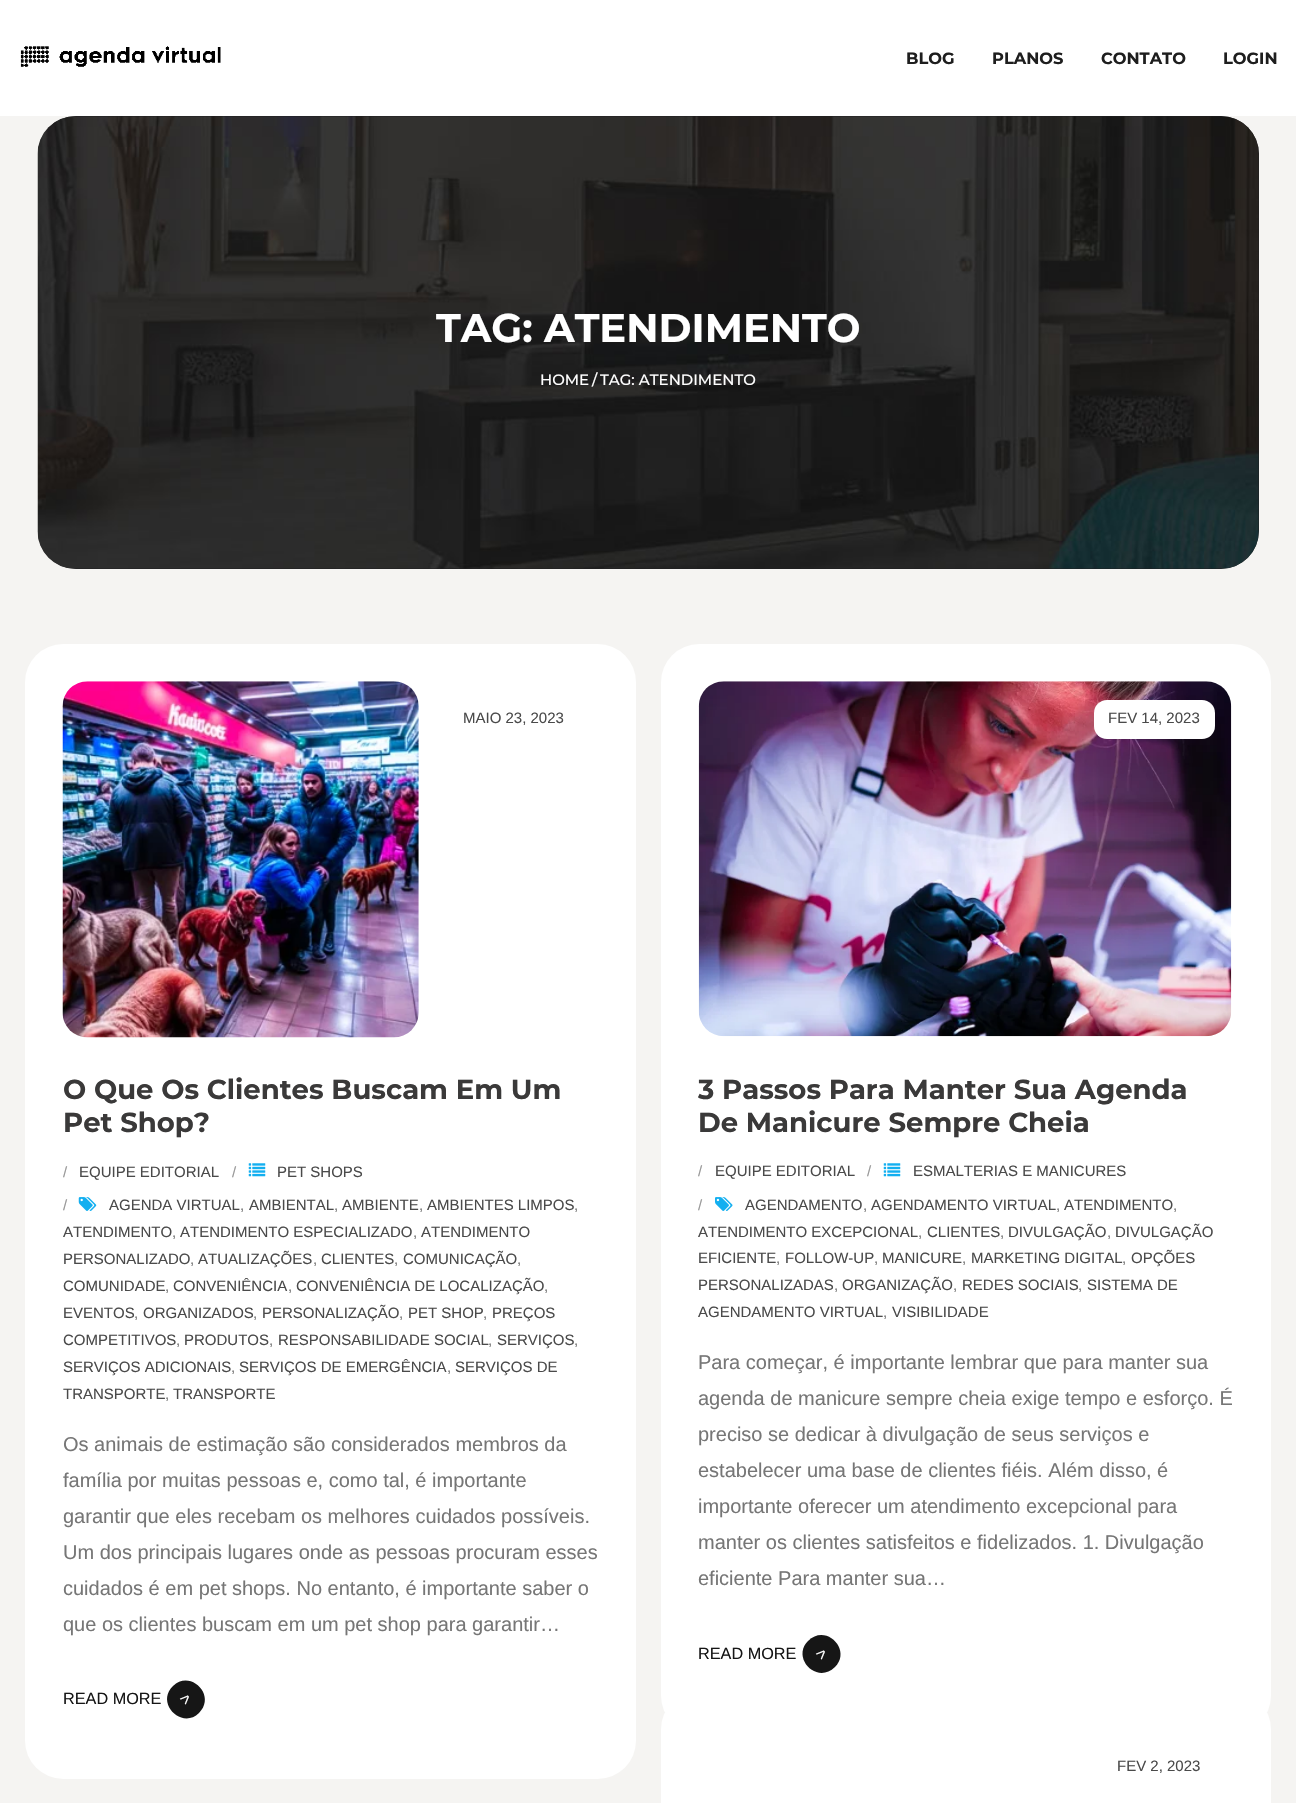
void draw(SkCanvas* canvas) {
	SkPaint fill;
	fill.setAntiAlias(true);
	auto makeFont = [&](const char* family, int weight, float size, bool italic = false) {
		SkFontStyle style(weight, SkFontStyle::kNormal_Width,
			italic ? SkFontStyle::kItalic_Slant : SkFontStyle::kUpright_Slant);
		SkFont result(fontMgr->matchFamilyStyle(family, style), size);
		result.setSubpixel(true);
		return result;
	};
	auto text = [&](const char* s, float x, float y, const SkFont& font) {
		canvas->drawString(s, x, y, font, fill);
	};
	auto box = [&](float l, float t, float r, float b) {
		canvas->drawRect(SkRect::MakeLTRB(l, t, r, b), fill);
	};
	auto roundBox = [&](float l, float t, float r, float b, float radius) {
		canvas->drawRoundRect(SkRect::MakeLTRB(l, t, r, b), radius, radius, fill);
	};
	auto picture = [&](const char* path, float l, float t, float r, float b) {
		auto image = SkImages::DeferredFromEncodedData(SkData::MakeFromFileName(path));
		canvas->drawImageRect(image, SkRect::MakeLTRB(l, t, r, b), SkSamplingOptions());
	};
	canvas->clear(0xFFF5F4F2);
	fill.setColor(0xFFFFFFFF);
	box(0, 0, 1296, 116);
	picture("image0.png", 20, 46, 221, 67);
	fill.setColor(0xFF1D1D1F);
	roundBox(38, 116, 1259, 569, 38);
	picture("image1.png", 37, 116, 1259, 569);
	fill.setColor(0xFFFFFFFF);
	roundBox(25, 644, 636, 1779, 38);
	picture("image2.png", 62, 681, 419, 1038);
	picture("image3.png", 248, 1163, 266, 1177);
	picture("image4.png", 78, 1197, 97, 1211);
	fill.setColor(0xFF161616);
	canvas->drawPath(SkPathBuilder().moveTo(173, 1686).cubicTo(190, 1669, 217, 1695, 199, 1713).cubicTo(182, 1730, 155, 1703, 173, 1686).close().detach(), fill);
	fill.setColor(0xFFFFFFFF);
	roundBox(661, 644, 1271, 1734, 38);
	picture("image5.png", 698, 681, 1232, 1037);
	roundBox(1094, 700, 1215, 739, 13);
	picture("image3.png", 883, 1163, 901, 1177);
	picture("image6.png", 715, 1197, 733, 1211);
	fill.setColor(0xFF161616);
	canvas->drawPath(SkPathBuilder().moveTo(808, 1641).cubicTo(826, 1623, 852, 1650, 835, 1667).cubicTo(817, 1685, 791, 1658, 808, 1641).close().detach(), fill);
	fill.setColor(0xFFFFFFFF);
	roundBox(661, 1691, 1271, 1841, 38);
	auto font1 = makeFont("Montserrat", 700, 16.25f);
	fill.setColor(0xFF1E1E1E);
	text("BLOG", 906, 64, font1);
	text("PLANOS", 992, 64, font1);
	text("CONTATO", 1101, 64, font1);
	text("LOGIN", 1223, 64, font1);
	auto font2 = makeFont("Montserrat", 700, 40);
	fill.setColor(0xFFFFFFFF);
	text("TAG: ATENDIMENTO", 436, 342, font2);
	auto font3 = makeFont("Montserrat", 500, 15);
	text("HOME", 540, 385, font3);
	text("/", 592, 385, font3);
	text("TAG: ATENDIMENTO", 600, 385, font3);
	auto font4 = makeFont("Liberation Sans", 400, 15);
	fill.setColor(0xFF4A4A4A);
	text("MAIO 23, 2023", 463, 723, font4);
	fill.setColor(0xFF999999);
	text("/", 63, 1177, font4);
	fill.setColor(0xFF4A4A4A);
	text("EQUIPE EDITORIAL", 79, 1177, font4);
	fill.setColor(0xFF999999);
	text("/", 232, 1177, font4);
	fill.setColor(0xFF4A4A4A);
	text("PET SHOPS", 277, 1177, font4);
	fill.setColor(0xFF999999);
	text("/", 63, 1210, font4);
	fill.setColor(0xFF4A4A4A);
	text("AGENDA VIRTUAL", 109, 1210, font4);
	fill.setColor(0xFF767676);
	text(",", 240, 1210, font4);
	fill.setColor(0xFF4A4A4A);
	text("AMBIENTAL", 249, 1210, font4);
	fill.setColor(0xFF767676);
	text(",", 334, 1210, font4);
	fill.setColor(0xFF4A4A4A);
	text("AMBIENTE", 342, 1210, font4);
	fill.setColor(0xFF767676);
	text(",", 419, 1210, font4);
	fill.setColor(0xFF4A4A4A);
	text("AMBIENTES LIMPOS", 427, 1210, font4);
	fill.setColor(0xFF767676);
	text(",", 574, 1210, font4);
	fill.setColor(0xFF4A4A4A);
	text("ATENDIMENTO", 63, 1237, font4);
	fill.setColor(0xFF767676);
	text(",", 172, 1237, font4);
	fill.setColor(0xFF4A4A4A);
	text("ATENDIMENTO ESPECIALIZADO", 180, 1237, font4);
	fill.setColor(0xFF767676);
	text(",", 413, 1237, font4);
	fill.setColor(0xFF4A4A4A);
	text("ATENDIMENTO", 421, 1237, font4);
	text("PERSONALIZADO", 63, 1264, font4);
	fill.setColor(0xFF767676);
	text(",", 190, 1264, font4);
	fill.setColor(0xFF4A4A4A);
	text("ATUALIZAÇÕES", 198, 1264, font4);
	fill.setColor(0xFF767676);
	text(",", 313, 1264, font4);
	fill.setColor(0xFF4A4A4A);
	text("CLIENTES", 321, 1264, font4);
	fill.setColor(0xFF767676);
	text(",", 394, 1264, font4);
	fill.setColor(0xFF4A4A4A);
	text("COMUNICAÇÃO", 403, 1264, font4);
	fill.setColor(0xFF767676);
	text(",", 517, 1264, font4);
	fill.setColor(0xFF4A4A4A);
	text("COMUNIDADE", 63, 1291, font4);
	fill.setColor(0xFF767676);
	text(",", 165, 1291, font4);
	fill.setColor(0xFF4A4A4A);
	text("CONVENIÊNCIA", 173, 1291, font4);
	fill.setColor(0xFF767676);
	text(",", 288, 1291, font4);
	fill.setColor(0xFF4A4A4A);
	text("CONVENIÊNCIA DE LOCALIZAÇÃO", 296, 1291, font4);
	fill.setColor(0xFF767676);
	text(",", 544, 1291, font4);
	fill.setColor(0xFF4A4A4A);
	text("EVENTOS", 63, 1318, font4);
	fill.setColor(0xFF767676);
	text(",", 134, 1318, font4);
	fill.setColor(0xFF4A4A4A);
	text("ORGANIZADOS", 143, 1318, font4);
	fill.setColor(0xFF767676);
	text(",", 253, 1318, font4);
	fill.setColor(0xFF4A4A4A);
	text("PERSONALIZAÇÃO", 262, 1318, font4);
	fill.setColor(0xFF767676);
	text(",", 399, 1318, font4);
	fill.setColor(0xFF4A4A4A);
	text("PET SHOP", 408, 1318, font4);
	fill.setColor(0xFF767676);
	text(",", 483, 1318, font4);
	fill.setColor(0xFF4A4A4A);
	text("PREÇOS", 492, 1318, font4);
	text("COMPETITIVOS", 63, 1345, font4);
	fill.setColor(0xFF767676);
	text(",", 176, 1345, font4);
	fill.setColor(0xFF4A4A4A);
	text("PRODUTOS", 184, 1345, font4);
	fill.setColor(0xFF767676);
	text(",", 269, 1345, font4);
	fill.setColor(0xFF4A4A4A);
	text("RESPONSABILIDADE SOCIAL", 278, 1345, font4);
	fill.setColor(0xFF767676);
	text(",", 488, 1345, font4);
	fill.setColor(0xFF4A4A4A);
	text("SERVIÇOS", 497, 1345, font4);
	fill.setColor(0xFF767676);
	text(",", 574, 1345, font4);
	fill.setColor(0xFF4A4A4A);
	text("SERVIÇOS ADICIONAIS", 63, 1372, font4);
	fill.setColor(0xFF767676);
	text(",", 231, 1372, font4);
	fill.setColor(0xFF4A4A4A);
	text("SERVIÇOS DE EMERGÊNCIA", 239, 1372, font4);
	fill.setColor(0xFF767676);
	text(",", 447, 1372, font4);
	fill.setColor(0xFF4A4A4A);
	text("SERVIÇOS DE", 455, 1372, font4);
	text("TRANSPORTE", 63, 1399, font4);
	fill.setColor(0xFF767676);
	text(",", 165, 1399, font4);
	fill.setColor(0xFF4A4A4A);
	text("TRANSPORTE", 173, 1399, font4);
	auto font5 = makeFont("Montserrat", 700, 27.5f);
	fill.setColor(0xFF3A3939);
	text("O Que Os Clientes Buscam Em Um", 63, 1099, font5);
	text("Pet Shop?", 63, 1132, font5);
	auto font6 = makeFont("Liberation Sans", 400, 20);
	fill.setColor(0xFF767676);
	text("Os animais de estimação são considerados membros da", 63, 1451, font6);
	text("família por muitas pessoas e, como tal, é importante", 63, 1487, font6);
	text("garantir que eles recebam os melhores cuidados possíveis.", 63, 1523, font6);
	text("Um dos principais lugares onde as pessoas procuram esses", 63, 1559, font6);
	text("cuidados é em pet shops. No entanto, é importante saber o", 63, 1595, font6);
	text("que os clientes buscam em um pet shop para garantir…", 63, 1631, font6);
	auto font7 = makeFont("Liberation Sans", 400, 16.25f);
	fill.setColor(0xFF161616);
	text("READ MORE", 63, 1704, font7);
	fill.setColor(0xFFFFFFFF);
	canvas->save();
	canvas->rotate(-45, 186, 1706);
	text(">", 186, 1706, font7);
	canvas->restore();
	fill.setColor(0xFF4A4A4A);
	text("FEV 14, 2023", 1108, 723, font4);
	fill.setColor(0xFF999999);
	text("/", 698, 1176, font4);
	fill.setColor(0xFF4A4A4A);
	text("EQUIPE EDITORIAL", 715, 1176, font4);
	fill.setColor(0xFF999999);
	text("/", 867, 1176, font4);
	fill.setColor(0xFF4A4A4A);
	text("ESMALTERIAS E MANICURES", 913, 1176, font4);
	fill.setColor(0xFF999999);
	text("/", 698, 1210, font4);
	fill.setColor(0xFF4A4A4A);
	text("AGENDAMENTO", 745, 1210, font4);
	fill.setColor(0xFF767676);
	text(",", 863, 1210, font4);
	fill.setColor(0xFF4A4A4A);
	text("AGENDAMENTO VIRTUAL", 871, 1210, font4);
	fill.setColor(0xFF767676);
	text(",", 1056, 1210, font4);
	fill.setColor(0xFF4A4A4A);
	text("ATENDIMENTO", 1064, 1210, font4);
	fill.setColor(0xFF767676);
	text(",", 1173, 1210, font4);
	fill.setColor(0xFF4A4A4A);
	text("ATENDIMENTO EXCEPCIONAL", 698, 1237, font4);
	fill.setColor(0xFF767676);
	text(",", 918, 1237, font4);
	fill.setColor(0xFF4A4A4A);
	text("CLIENTES", 927, 1237, font4);
	fill.setColor(0xFF767676);
	text(",", 1000, 1237, font4);
	fill.setColor(0xFF4A4A4A);
	text("DIVULGAÇÃO", 1008, 1237, font4);
	fill.setColor(0xFF767676);
	text(",", 1107, 1237, font4);
	fill.setColor(0xFF4A4A4A);
	text("DIVULGAÇÃO", 1115, 1237, font4);
	text("EFICIENTE", 698, 1263, font4);
	fill.setColor(0xFF767676);
	text(",", 776, 1263, font4);
	fill.setColor(0xFF4A4A4A);
	text("FOLLOW-UP", 785, 1263, font4);
	fill.setColor(0xFF767676);
	text(",", 874, 1263, font4);
	fill.setColor(0xFF4A4A4A);
	text("MANICURE", 882, 1263, font4);
	fill.setColor(0xFF767676);
	text(",", 962, 1263, font4);
	fill.setColor(0xFF4A4A4A);
	text("MARKETING DIGITAL", 971, 1263, font4);
	fill.setColor(0xFF767676);
	text(",", 1122, 1263, font4);
	fill.setColor(0xFF4A4A4A);
	text("OPÇÕES", 1131, 1263, font4);
	text("PERSONALIZADAS", 698, 1290, font4);
	fill.setColor(0xFF767676);
	text(",", 834, 1290, font4);
	fill.setColor(0xFF4A4A4A);
	text("ORGANIZAÇÃO", 842, 1290, font4);
	fill.setColor(0xFF767676);
	text(",", 953, 1290, font4);
	fill.setColor(0xFF4A4A4A);
	text("REDES SOCIAIS", 962, 1290, font4);
	fill.setColor(0xFF767676);
	text(",", 1078, 1290, font4);
	fill.setColor(0xFF4A4A4A);
	text("SISTEMA DE", 1087, 1290, font4);
	text("AGENDAMENTO VIRTUAL", 698, 1317, font4);
	fill.setColor(0xFF767676);
	text(",", 883, 1317, font4);
	fill.setColor(0xFF4A4A4A);
	text("VISIBILIDADE", 892, 1317, font4);
	fill.setColor(0xFF3A3939);
	text("3 Passos Para Manter Sua Agenda", 698, 1099, font5);
	text("De Manicure Sempre Cheia", 698, 1132, font5);
	fill.setColor(0xFF767676);
	text("Para começar, é importante lembrar que para manter sua", 698, 1369, font6);
	text("agenda de manicure sempre cheia exige tempo e esforço. É", 698, 1405, font6);
	text("preciso se dedicar à divulgação de seus serviços e", 698, 1441, font6);
	text("estabelecer uma base de clientes fiéis. Além disso, é", 698, 1477, font6);
	text("importante oferecer um atendimento excepcional para", 698, 1513, font6);
	text("manter os clientes satisfeitos e fidelizados. 1. Divulgação", 698, 1549, font6);
	text("eficiente Para manter sua…", 698, 1585, font6);
	fill.setColor(0xFF161616);
	text("READ MORE", 698, 1659, font7);
	fill.setColor(0xFFFFFFFF);
	canvas->save();
	canvas->rotate(-45, 822, 1661);
	text(">", 822, 1661, font7);
	canvas->restore();
	fill.setColor(0xFF4A4A4A);
	text("FEV 2, 2023", 1117, 1771, font4);
}
